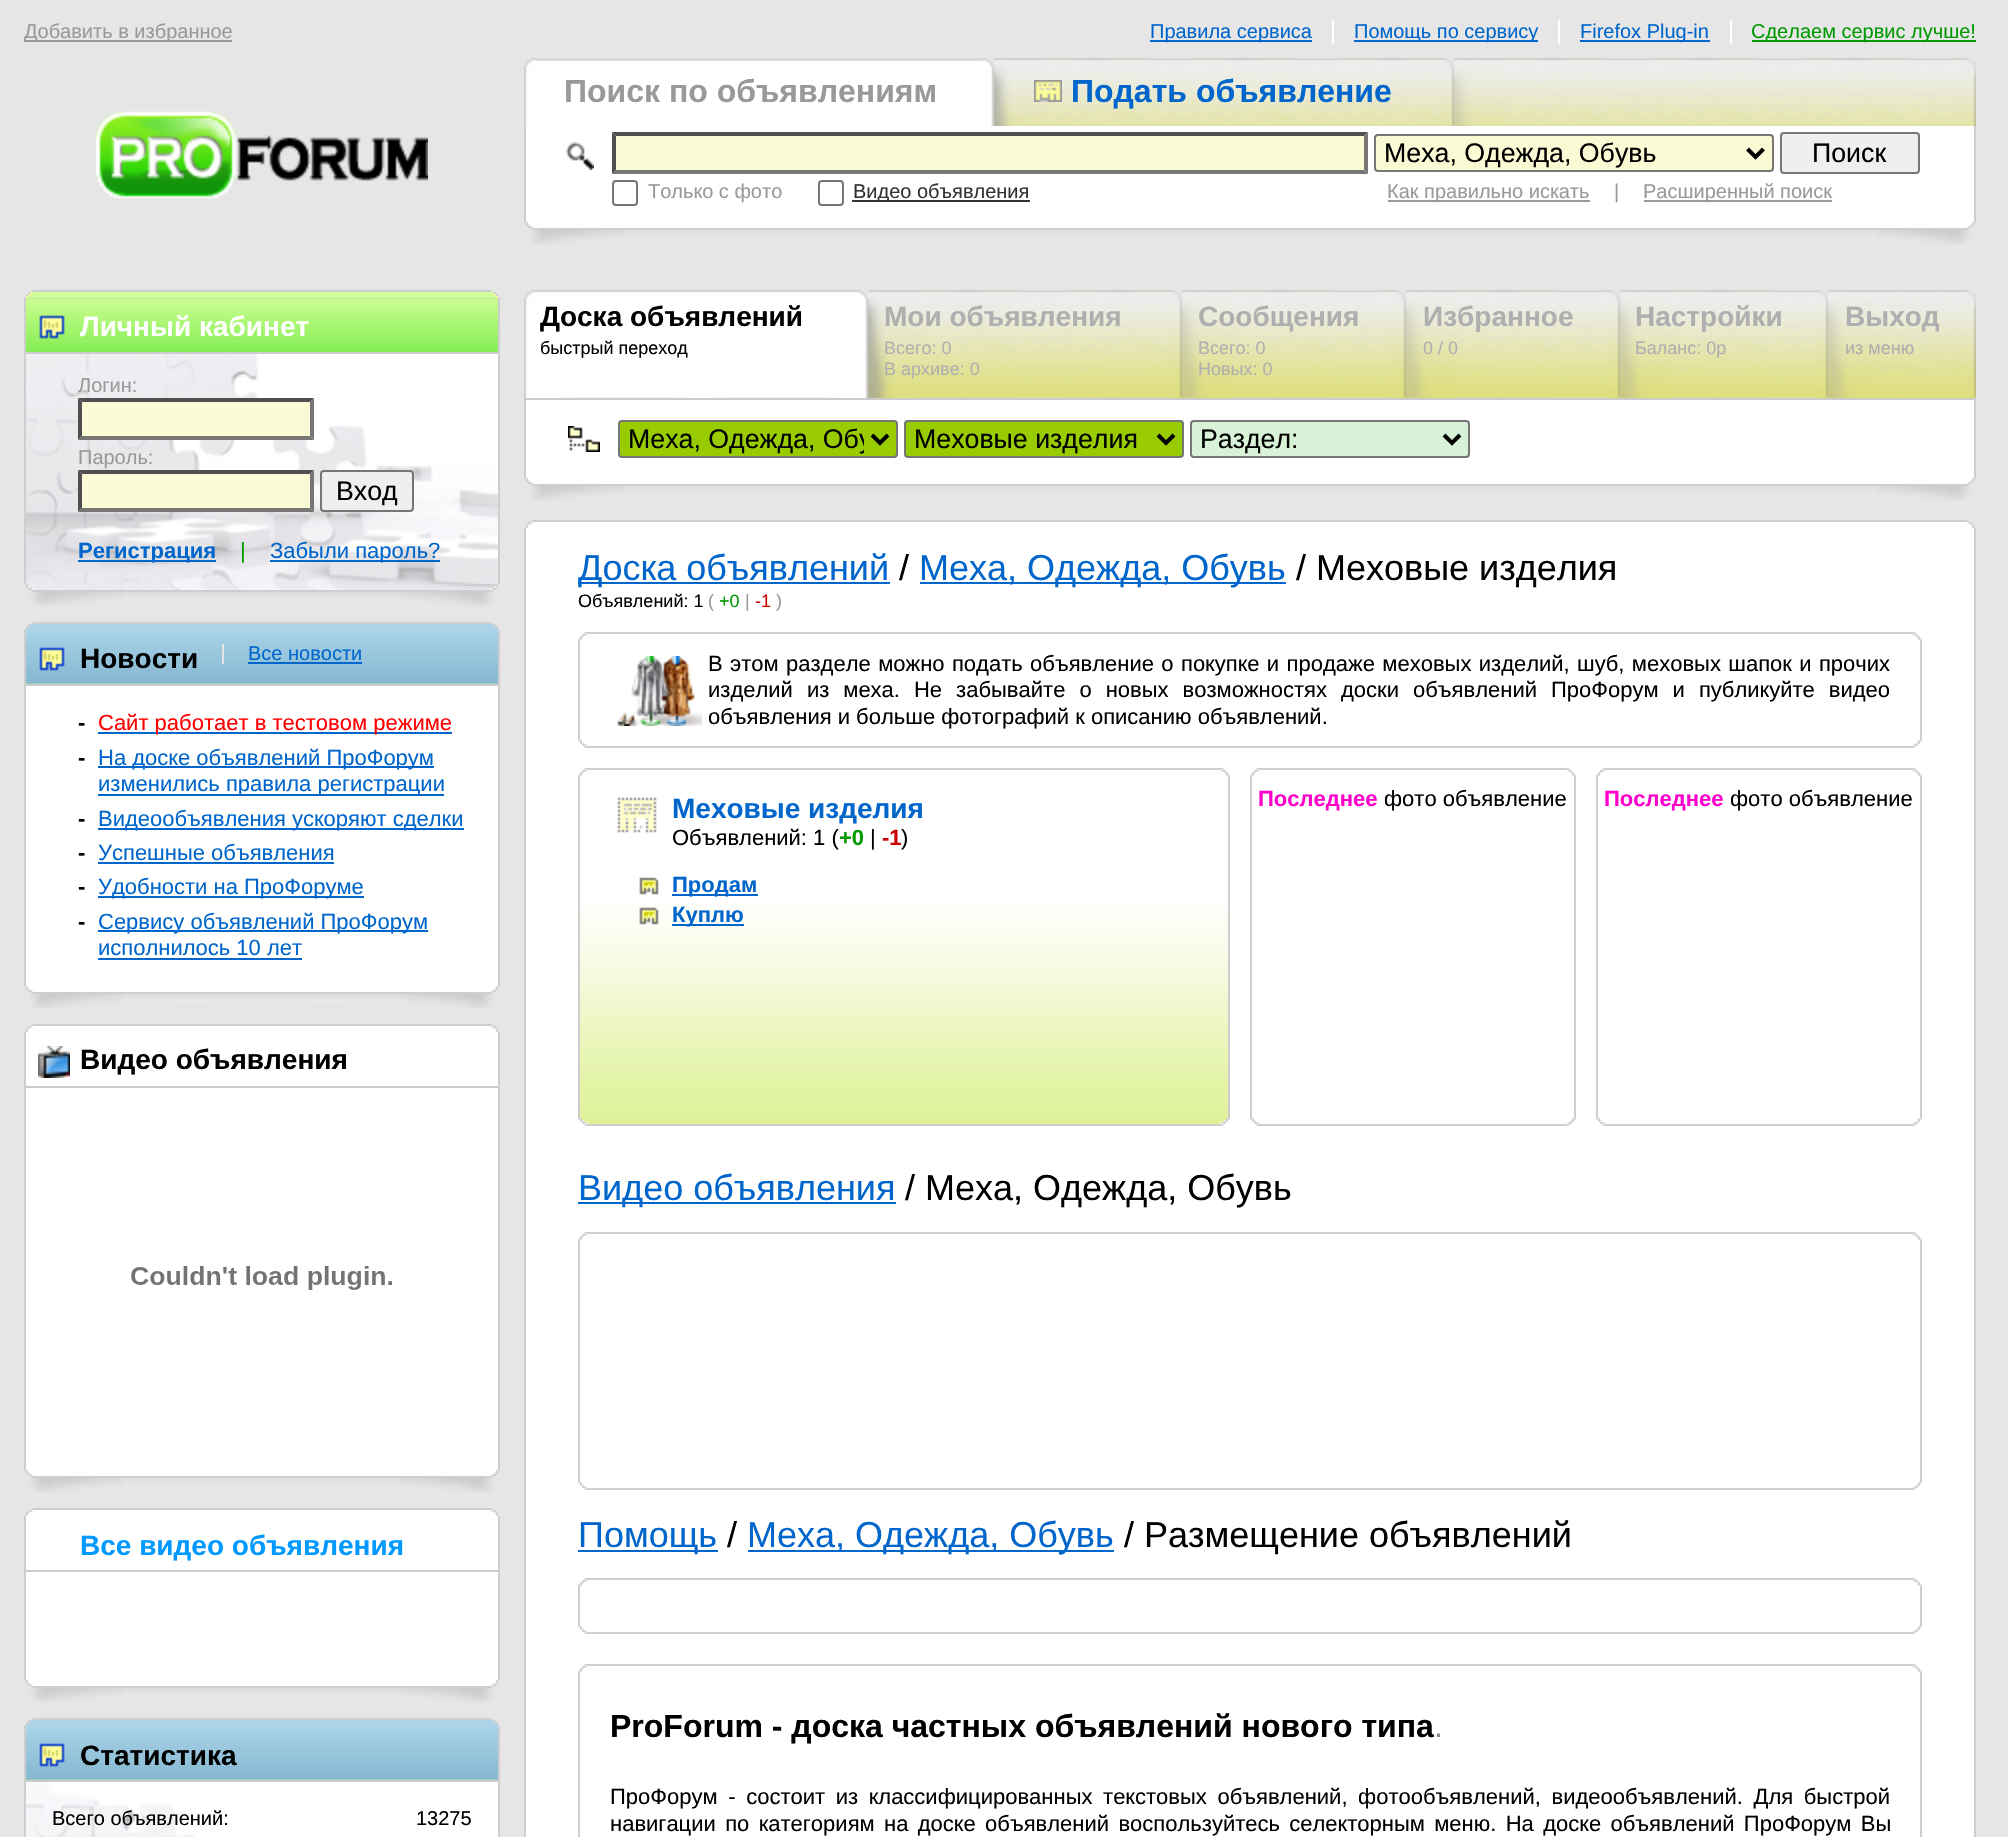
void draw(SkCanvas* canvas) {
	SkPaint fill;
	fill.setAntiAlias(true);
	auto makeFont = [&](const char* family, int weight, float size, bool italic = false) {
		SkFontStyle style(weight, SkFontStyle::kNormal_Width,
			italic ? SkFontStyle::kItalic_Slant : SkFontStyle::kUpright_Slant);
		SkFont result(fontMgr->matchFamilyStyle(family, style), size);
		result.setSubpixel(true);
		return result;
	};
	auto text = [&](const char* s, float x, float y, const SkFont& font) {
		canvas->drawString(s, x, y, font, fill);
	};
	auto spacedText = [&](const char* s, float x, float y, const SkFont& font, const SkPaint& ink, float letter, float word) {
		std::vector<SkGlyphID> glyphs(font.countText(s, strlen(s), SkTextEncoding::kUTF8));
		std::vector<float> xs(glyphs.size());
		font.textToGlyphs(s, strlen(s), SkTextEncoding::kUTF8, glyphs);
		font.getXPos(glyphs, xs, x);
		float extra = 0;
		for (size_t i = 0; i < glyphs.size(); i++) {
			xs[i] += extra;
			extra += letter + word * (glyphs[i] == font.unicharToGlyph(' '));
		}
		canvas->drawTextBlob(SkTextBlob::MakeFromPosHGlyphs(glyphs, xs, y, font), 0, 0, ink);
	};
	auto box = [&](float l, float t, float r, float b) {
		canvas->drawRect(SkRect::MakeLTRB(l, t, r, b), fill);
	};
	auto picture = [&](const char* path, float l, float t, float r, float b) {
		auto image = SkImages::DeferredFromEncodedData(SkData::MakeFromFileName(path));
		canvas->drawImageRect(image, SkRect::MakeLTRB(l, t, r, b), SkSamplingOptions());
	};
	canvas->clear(0xFFE6E6E6);
	fill.setColor(0xFF999999);
	box(24, 40, 232, 42);
	picture("image0.png", 96, 111, 428, 199);
	fill.setColor(0xFF0066CC);
	box(1150, 40, 1312, 42);
	fill.setColor(0xFFFFFFFF);
	box(1332, 20, 1334, 44);
	fill.setColor(0xFF0066CC);
	box(1354, 40, 1538, 42);
	fill.setColor(0xFFFFFFFF);
	box(1558, 20, 1560, 44);
	fill.setColor(0xFF0066CC);
	box(1580, 40, 1710, 42);
	fill.setColor(0xFFFFFFFF);
	box(1730, 20, 1732, 44);
	fill.setColor(0xFF009900);
	box(1752, 40, 1976, 42);
	fill.setColor(0xFFFFFFFF);
	box(526, 61, 1974, 222);
	fill.setColor(0xFFDADADA);
	box(536, 58, 982, 61);
	picture("image1.png", 524, 58, 536, 126);
	picture("image2.png", 982, 58, 994, 126);
	picture("image3.png", 1044, 58, 1442, 126);
	picture("image4.png", 994, 58, 1044, 126);
	picture("image5.png", 1034, 80, 1062, 102);
	picture("image6.png", 1442, 58, 1454, 126);
	picture("image7.png", 1504, 58, 1964, 126);
	picture("image8.png", 1454, 58, 1504, 126);
	picture("image6.png", 1964, 58, 1976, 126);
	fill.setColor(0xFFCECECE);
	box(1974, 126, 1976, 222);
	box(524, 126, 526, 222);
	picture("image9.png", 566, 142, 594, 170);
	fill.setColor(0xFFFAFAD5);
	box(612, 132, 1368, 174);
	fill.setColor(0xFF4F4F4F);
	canvas->drawPath(SkPathBuilder().moveTo(612, 132).lineTo(1368, 132).lineTo(1364, 136).lineTo(616, 136).close().detach(), fill);
	fill.setColor(0xFF767676);
	canvas->drawPath(SkPathBuilder().moveTo(1368, 132).lineTo(1368, 174).lineTo(1364, 170).lineTo(1364, 136).close().detach(), fill);
	canvas->drawPath(SkPathBuilder().moveTo(1368, 174).lineTo(612, 174).lineTo(616, 170).lineTo(1364, 170).close().detach(), fill);
	fill.setColor(0xFF4F4F4F);
	canvas->drawPath(SkPathBuilder().moveTo(612, 174).lineTo(612, 132).lineTo(616, 136).lineTo(616, 170).close().detach(), fill);
	fill.setColor(0xFFFAFAD5);
	canvas->drawRoundRect(SkRect::MakeLTRB(1375, 135, 1773, 171), 3, 3, fill);
	fill.setStyle(SkPaint::kStroke_Style);
	fill.setStrokeWidth(2);
	fill.setColor(0xFF767676);
	canvas->drawRoundRect(SkRect::MakeLTRB(1375, 135, 1773, 171), 3, 3, fill);
	fill.setStrokeWidth(4);
	fill.setColor(0xFF000000);
	canvas->drawPath(SkPathBuilder().moveTo(1747.5f, 149).lineTo(1755.5f, 157).lineTo(1763.5f, 149).detach(), fill);
	fill.setStyle(SkPaint::kFill_Style);
	fill.setColor(0xFFEFEFEF);
	canvas->drawRoundRect(SkRect::MakeLTRB(1781, 133, 1919, 173), 3, 3, fill);
	fill.setStyle(SkPaint::kStroke_Style);
	fill.setStrokeWidth(2);
	fill.setColor(0xFF767676);
	canvas->drawRoundRect(SkRect::MakeLTRB(1781, 133, 1919, 173), 3, 3, fill);
	canvas->drawRoundRect(SkRect::MakeLTRB(613, 181, 637, 205), 3, 3, fill);
	canvas->drawRoundRect(SkRect::MakeLTRB(819, 181, 843, 205), 3, 3, fill);
	fill.setStyle(SkPaint::kFill_Style);
	fill.setColor(0xFF333333);
	box(852, 200, 1030, 202);
	fill.setColor(0xFF999999);
	box(1388, 200, 1590, 202);
	box(1644, 200, 1832, 202);
	fill.setColor(0xFFFFFFFF);
	box(524, 222, 1976, 224);
	fill.setColor(0xFFE2E2E2);
	box(1974, 222, 1976, 224);
	box(524, 222, 526, 224);
	fill.setColor(0xFFD6D6D6);
	box(1972, 222, 1974, 224);
	box(526, 222, 528, 224);
	fill.setColor(0xFFFFFFFF);
	box(526, 224, 1974, 226);
	fill.setColor(0xFFD2D2D2);
	box(1972, 224, 1974, 226);
	box(526, 224, 528, 226);
	fill.setColor(0xFFEAEAEA);
	box(1970, 224, 1972, 226);
	box(528, 224, 530, 226);
	fill.setColor(0xFFDADADA);
	box(528, 226, 1972, 228);
	fill.setColor(0xFFD2D2D2);
	box(1970, 226, 1972, 228);
	box(528, 226, 530, 228);
	fill.setColor(0xFFFFFFFF);
	box(532, 226, 1968, 228);
	fill.setColor(0xFFF3F3F3);
	box(1966, 226, 1968, 228);
	box(532, 226, 534, 228);
	fill.setColor(0xFFD2D2D2);
	box(530, 228, 1970, 230);
	fill.setColor(0xFFE2E2E2);
	box(1968, 228, 1970, 230);
	box(530, 228, 532, 230);
	fill.setColor(0xFFCECECE);
	box(534, 228, 1966, 230);
	picture("image10.png", 623, 230, 1877, 244);
	picture("image11.png", 524, 230, 623, 244);
	picture("image12.png", 1877, 230, 1976, 244);
	fill.setColor(0xFFD2D2D2);
	box(30, 290, 494, 292);
	fill.setColor(0xFFE2E2E2);
	box(492, 290, 494, 292);
	box(30, 290, 32, 292);
	fill.setColor(0xFFCECECE);
	box(34, 290, 490, 292);
	fill.setColor(0xFFD2D2D2);
	box(494, 292, 496, 294);
	box(28, 292, 30, 294);
	fill.setColor(0xFFD3FE9D);
	box(30, 292, 494, 294);
	fill.setColor(0xFFEAF4A5);
	box(492, 292, 494, 294);
	box(30, 292, 32, 294);
	fill.setColor(0xFFD2D2D2);
	box(496, 294, 498, 296);
	box(26, 294, 28, 296);
	fill.setColor(0xFFD1FE9A);
	box(28, 294, 496, 296);
	fill.setColor(0xFFEAF4A5);
	box(494, 294, 496, 296);
	box(28, 294, 30, 296);
	fill.setColor(0xFFE2E2E2);
	box(498, 296, 500, 298);
	box(24, 296, 26, 298);
	fill.setColor(0xFFCEFE95);
	box(26, 296, 498, 298);
	fill.setColor(0xFFEAF4A5);
	box(496, 296, 498, 298);
	box(26, 296, 28, 298);
	fill.setColor(0xFFCECECE);
	box(498, 298, 500, 584);
	box(24, 298, 26, 584);
	picture("image13.png", 26, 298, 498, 352);
	fill.setColor(0xFFCCCCCC);
	box(26, 352, 498, 354);
	picture("image14.png", 39, 315, 65, 339);
	picture("image15.png", 26, 354, 498, 584);
	fill.setColor(0xFFFAFAD5);
	box(78, 398, 314, 440);
	fill.setColor(0xFF4F4F4F);
	canvas->drawPath(SkPathBuilder().moveTo(78, 398).lineTo(314, 398).lineTo(310, 402).lineTo(82, 402).close().detach(), fill);
	fill.setColor(0xFF767676);
	canvas->drawPath(SkPathBuilder().moveTo(314, 398).lineTo(314, 440).lineTo(310, 436).lineTo(310, 402).close().detach(), fill);
	canvas->drawPath(SkPathBuilder().moveTo(314, 440).lineTo(78, 440).lineTo(82, 436).lineTo(310, 436).close().detach(), fill);
	fill.setColor(0xFF4F4F4F);
	canvas->drawPath(SkPathBuilder().moveTo(78, 440).lineTo(78, 398).lineTo(82, 402).lineTo(82, 436).close().detach(), fill);
	fill.setColor(0xFFFAFAD5);
	box(78, 470, 314, 512);
	fill.setColor(0xFF4F4F4F);
	canvas->drawPath(SkPathBuilder().moveTo(78, 470).lineTo(314, 470).lineTo(310, 474).lineTo(82, 474).close().detach(), fill);
	fill.setColor(0xFF767676);
	canvas->drawPath(SkPathBuilder().moveTo(314, 470).lineTo(314, 512).lineTo(310, 508).lineTo(310, 474).close().detach(), fill);
	canvas->drawPath(SkPathBuilder().moveTo(314, 512).lineTo(78, 512).lineTo(82, 508).lineTo(310, 508).close().detach(), fill);
	fill.setColor(0xFF4F4F4F);
	canvas->drawPath(SkPathBuilder().moveTo(78, 512).lineTo(78, 470).lineTo(82, 474).lineTo(82, 508).close().detach(), fill);
	fill.setColor(0xFFEFEFEF);
	canvas->drawRoundRect(SkRect::MakeLTRB(321, 471, 413, 511), 3, 3, fill);
	fill.setStyle(SkPaint::kStroke_Style);
	fill.setColor(0xFF767676);
	canvas->drawRoundRect(SkRect::MakeLTRB(321, 471, 413, 511), 3, 3, fill);
	fill.setStyle(SkPaint::kFill_Style);
	fill.setColor(0xFF0066CC);
	box(78, 560, 216, 562);
	box(270, 560, 440, 562);
	fill.setColor(0xFFE2E2E2);
	box(498, 584, 500, 586);
	box(24, 584, 26, 586);
	picture("image16.png", 28, 584, 496, 586);
	fill.setColor(0xFFD6D6D6);
	box(496, 584, 498, 586);
	box(26, 584, 28, 586);
	fill.setColor(0xFFD2D2D2);
	box(496, 586, 498, 588);
	box(26, 586, 28, 588);
	picture("image17.png", 30, 586, 494, 588);
	fill.setColor(0xFFEAEAEA);
	box(494, 586, 496, 588);
	box(28, 586, 30, 588);
	fill.setColor(0xFFDADADA);
	box(28, 588, 496, 590);
	fill.setColor(0xFFD2D2D2);
	box(494, 588, 496, 590);
	box(28, 588, 30, 590);
	picture("image18.png", 34, 588, 490, 590);
	fill.setColor(0xFFF3F3F3);
	box(490, 588, 492, 590);
	box(32, 588, 34, 590);
	fill.setColor(0xFFD2D2D2);
	box(30, 590, 494, 592);
	fill.setColor(0xFFE2E2E2);
	box(492, 590, 494, 592);
	box(30, 590, 32, 592);
	fill.setColor(0xFFCECECE);
	box(34, 590, 490, 592);
	picture("image19.png", 123, 592, 401, 606);
	picture("image11.png", 24, 592, 123, 606);
	picture("image12.png", 401, 592, 500, 606);
	fill.setColor(0xFFD2D2D2);
	box(30, 622, 494, 624);
	fill.setColor(0xFFE2E2E2);
	box(492, 622, 494, 624);
	box(30, 622, 32, 624);
	fill.setColor(0xFFCECECE);
	box(34, 622, 490, 624);
	fill.setColor(0xFFD2D2D2);
	box(494, 624, 496, 626);
	box(28, 624, 30, 626);
	fill.setColor(0xFFACD5EA);
	box(30, 624, 494, 626);
	fill.setColor(0xFFBCD6E3);
	box(492, 624, 494, 626);
	box(30, 624, 32, 626);
	fill.setColor(0xFFD2D2D2);
	box(496, 626, 498, 628);
	box(26, 626, 28, 628);
	fill.setColor(0xFFABD4E9);
	box(28, 626, 496, 628);
	fill.setColor(0xFFB7D6E6);
	box(494, 626, 496, 628);
	box(28, 626, 30, 628);
	fill.setColor(0xFFE2E2E2);
	box(498, 628, 500, 630);
	box(24, 628, 26, 630);
	fill.setColor(0xFFA9D3E8);
	box(26, 628, 498, 630);
	fill.setColor(0xFFB0CEDE);
	box(496, 628, 498, 630);
	box(26, 628, 28, 630);
	fill.setColor(0xFFFFFFFF);
	box(26, 686, 498, 986);
	fill.setColor(0xFFCECECE);
	box(498, 630, 500, 986);
	box(24, 630, 26, 986);
	picture("image20.png", 26, 630, 498, 684);
	fill.setColor(0xFFCCCCCC);
	box(26, 684, 498, 686);
	picture("image21.png", 39, 647, 65, 671);
	fill.setColor(0xFFE5E5E5);
	box(222, 644, 224, 664);
	fill.setColor(0xFF0066CC);
	box(248, 662, 362, 664);
	box(98, 732, 452, 734);
	box(98, 766, 434, 768);
	box(98, 794, 444, 796);
	box(98, 828, 464, 830);
	box(98, 862, 334, 864);
	box(98, 896, 364, 898);
	box(98, 930, 428, 932);
	box(98, 958, 302, 960);
	fill.setColor(0xFFFFFFFF);
	box(24, 986, 500, 988);
	fill.setColor(0xFFE2E2E2);
	box(498, 986, 500, 988);
	box(24, 986, 26, 988);
	fill.setColor(0xFFD6D6D6);
	box(496, 986, 498, 988);
	box(26, 986, 28, 988);
	fill.setColor(0xFFFFFFFF);
	box(26, 988, 498, 990);
	fill.setColor(0xFFD2D2D2);
	box(496, 988, 498, 990);
	box(26, 988, 28, 990);
	fill.setColor(0xFFEAEAEA);
	box(494, 988, 496, 990);
	box(28, 988, 30, 990);
	fill.setColor(0xFFDADADA);
	box(28, 990, 496, 992);
	fill.setColor(0xFFD2D2D2);
	box(494, 990, 496, 992);
	box(28, 990, 30, 992);
	fill.setColor(0xFFFFFFFF);
	box(32, 990, 492, 992);
	fill.setColor(0xFFF3F3F3);
	box(490, 990, 492, 992);
	box(32, 990, 34, 992);
	fill.setColor(0xFFD2D2D2);
	box(30, 992, 494, 994);
	fill.setColor(0xFFE2E2E2);
	box(492, 992, 494, 994);
	box(30, 992, 32, 994);
	fill.setColor(0xFFCECECE);
	box(34, 992, 490, 994);
	picture("image19.png", 123, 994, 401, 1008);
	picture("image11.png", 24, 994, 123, 1008);
	picture("image12.png", 401, 994, 500, 1008);
	fill.setColor(0xFFD2D2D2);
	box(30, 1024, 494, 1026);
	fill.setColor(0xFFE2E2E2);
	box(492, 1024, 494, 1026);
	box(30, 1024, 32, 1026);
	fill.setColor(0xFFCECECE);
	box(34, 1024, 490, 1026);
	fill.setColor(0xFFDADADA);
	box(28, 1026, 496, 1028);
	fill.setColor(0xFFD2D2D2);
	box(494, 1026, 496, 1028);
	box(28, 1026, 30, 1028);
	fill.setColor(0xFFFFFFFF);
	box(32, 1026, 492, 1028);
	fill.setColor(0xFFF3F3F3);
	box(490, 1026, 492, 1028);
	box(32, 1026, 34, 1028);
	fill.setColor(0xFFFFFFFF);
	box(26, 1028, 498, 1030);
	fill.setColor(0xFFD2D2D2);
	box(496, 1028, 498, 1030);
	box(26, 1028, 28, 1030);
	fill.setColor(0xFFEAEAEA);
	box(494, 1028, 496, 1030);
	box(28, 1028, 30, 1030);
	fill.setColor(0xFFFFFFFF);
	box(24, 1030, 500, 1032);
	fill.setColor(0xFFE2E2E2);
	box(498, 1030, 500, 1032);
	box(24, 1030, 26, 1032);
	fill.setColor(0xFFD6D6D6);
	box(496, 1030, 498, 1032);
	box(26, 1030, 28, 1032);
	fill.setColor(0xFFFFFFFF);
	box(26, 1032, 498, 1470);
	fill.setColor(0xFFCECECE);
	box(498, 1032, 500, 1470);
	box(24, 1032, 26, 1470);
	fill.setColor(0xFFCCCCCC);
	box(26, 1086, 498, 1088);
	picture("image22.png", 38, 1046, 70, 1078);
	picture("image23.png", 131, 1266, 393, 1290);
	fill.setColor(0xFFFFFFFF);
	box(24, 1470, 500, 1472);
	fill.setColor(0xFFE2E2E2);
	box(498, 1470, 500, 1472);
	box(24, 1470, 26, 1472);
	fill.setColor(0xFFD6D6D6);
	box(496, 1470, 498, 1472);
	box(26, 1470, 28, 1472);
	fill.setColor(0xFFFFFFFF);
	box(26, 1472, 498, 1474);
	fill.setColor(0xFFD2D2D2);
	box(496, 1472, 498, 1474);
	box(26, 1472, 28, 1474);
	fill.setColor(0xFFEAEAEA);
	box(494, 1472, 496, 1474);
	box(28, 1472, 30, 1474);
	fill.setColor(0xFFDADADA);
	box(28, 1474, 496, 1476);
	fill.setColor(0xFFD2D2D2);
	box(494, 1474, 496, 1476);
	box(28, 1474, 30, 1476);
	fill.setColor(0xFFFFFFFF);
	box(32, 1474, 492, 1476);
	fill.setColor(0xFFF3F3F3);
	box(490, 1474, 492, 1476);
	box(32, 1474, 34, 1476);
	fill.setColor(0xFFD2D2D2);
	box(30, 1476, 494, 1478);
	fill.setColor(0xFFE2E2E2);
	box(492, 1476, 494, 1478);
	box(30, 1476, 32, 1478);
	fill.setColor(0xFFCECECE);
	box(34, 1476, 490, 1478);
	picture("image19.png", 123, 1478, 401, 1492);
	picture("image11.png", 24, 1478, 123, 1492);
	picture("image12.png", 401, 1478, 500, 1492);
	fill.setColor(0xFFD2D2D2);
	box(30, 1508, 494, 1510);
	fill.setColor(0xFFE2E2E2);
	box(492, 1508, 494, 1510);
	box(30, 1508, 32, 1510);
	fill.setColor(0xFFCECECE);
	box(34, 1508, 490, 1510);
	fill.setColor(0xFFDADADA);
	box(28, 1510, 496, 1512);
	fill.setColor(0xFFD2D2D2);
	box(494, 1510, 496, 1512);
	box(28, 1510, 30, 1512);
	fill.setColor(0xFFFFFFFF);
	box(32, 1510, 492, 1512);
	fill.setColor(0xFFF3F3F3);
	box(490, 1510, 492, 1512);
	box(32, 1510, 34, 1512);
	fill.setColor(0xFFFFFFFF);
	box(26, 1512, 498, 1514);
	fill.setColor(0xFFD2D2D2);
	box(496, 1512, 498, 1514);
	box(26, 1512, 28, 1514);
	fill.setColor(0xFFEAEAEA);
	box(494, 1512, 496, 1514);
	box(28, 1512, 30, 1514);
	fill.setColor(0xFFFFFFFF);
	box(24, 1514, 500, 1516);
	fill.setColor(0xFFE2E2E2);
	box(498, 1514, 500, 1516);
	box(24, 1514, 26, 1516);
	fill.setColor(0xFFD6D6D6);
	box(496, 1514, 498, 1516);
	box(26, 1514, 28, 1516);
	fill.setColor(0xFFFFFFFF);
	box(26, 1516, 498, 1680);
	fill.setColor(0xFFCECECE);
	box(498, 1516, 500, 1680);
	box(24, 1516, 26, 1680);
	fill.setColor(0xFFCCCCCC);
	box(26, 1570, 498, 1572);
	fill.setColor(0xFFFFFFFF);
	box(24, 1680, 500, 1682);
	fill.setColor(0xFFE2E2E2);
	box(498, 1680, 500, 1682);
	box(24, 1680, 26, 1682);
	fill.setColor(0xFFD6D6D6);
	box(496, 1680, 498, 1682);
	box(26, 1680, 28, 1682);
	fill.setColor(0xFFFFFFFF);
	box(26, 1682, 498, 1684);
	fill.setColor(0xFFD2D2D2);
	box(496, 1682, 498, 1684);
	box(26, 1682, 28, 1684);
	fill.setColor(0xFFEAEAEA);
	box(494, 1682, 496, 1684);
	box(28, 1682, 30, 1684);
	fill.setColor(0xFFDADADA);
	box(28, 1684, 496, 1686);
	fill.setColor(0xFFD2D2D2);
	box(494, 1684, 496, 1686);
	box(28, 1684, 30, 1686);
	fill.setColor(0xFFFFFFFF);
	box(32, 1684, 492, 1686);
	fill.setColor(0xFFF3F3F3);
	box(490, 1684, 492, 1686);
	box(32, 1684, 34, 1686);
	fill.setColor(0xFFD2D2D2);
	box(30, 1686, 494, 1688);
	fill.setColor(0xFFE2E2E2);
	box(492, 1686, 494, 1688);
	box(30, 1686, 32, 1688);
	fill.setColor(0xFFCECECE);
	box(34, 1686, 490, 1688);
	picture("image19.png", 123, 1688, 401, 1702);
	picture("image11.png", 24, 1688, 123, 1702);
	picture("image12.png", 401, 1688, 500, 1702);
	fill.setColor(0xFFD2D2D2);
	box(30, 1718, 494, 1720);
	fill.setColor(0xFFE2E2E2);
	box(492, 1718, 494, 1720);
	box(30, 1718, 32, 1720);
	fill.setColor(0xFFCECECE);
	box(34, 1718, 490, 1720);
	fill.setColor(0xFFD2D2D2);
	box(494, 1720, 496, 1722);
	box(28, 1720, 30, 1722);
	fill.setColor(0xFFACD5EA);
	box(30, 1720, 494, 1722);
	fill.setColor(0xFFBCD6E3);
	box(492, 1720, 494, 1722);
	box(30, 1720, 32, 1722);
	fill.setColor(0xFFD2D2D2);
	box(496, 1722, 498, 1724);
	box(26, 1722, 28, 1724);
	fill.setColor(0xFFABD4E9);
	box(28, 1722, 496, 1724);
	fill.setColor(0xFFB7D6E6);
	box(494, 1722, 496, 1724);
	box(28, 1722, 30, 1724);
	fill.setColor(0xFFE2E2E2);
	box(498, 1724, 500, 1726);
	box(24, 1724, 26, 1726);
	fill.setColor(0xFFA9D3E8);
	box(26, 1724, 498, 1726);
	fill.setColor(0xFFB0CEDE);
	box(496, 1724, 498, 1726);
	box(26, 1724, 28, 1726);
	fill.setColor(0xFFFFFFFF);
	box(195, 1782, 498, 1837);
	fill.setColor(0xFFCECECE);
	box(498, 1726, 500, 1837);
	box(24, 1726, 26, 1837);
	picture("image20.png", 26, 1726, 498, 1780);
	fill.setColor(0xFFCCCCCC);
	box(26, 1780, 498, 1782);
	picture("image21.png", 39, 1743, 65, 1767);
	picture("image24.png", 26, 1782, 195, 1837);
	fill.setColor(0xFFFFFFFF);
	box(526, 400, 1974, 478);
	fill.setColor(0xFFCECECE);
	box(1974, 398, 1976, 478);
	box(524, 398, 526, 478);
	fill.setColor(0xFFCCCCCC);
	box(526, 398, 1974, 400);
	picture("image25.png", 536, 290, 858, 398);
	picture("image26.png", 524, 290, 536, 398);
	picture("image27.png", 858, 290, 868, 398);
	picture("image28.png", 918, 290, 1170, 398);
	picture("image29.png", 868, 290, 918, 398);
	picture("image30.png", 1170, 290, 1182, 398);
	picture("image31.png", 1232, 290, 1394, 398);
	picture("image32.png", 1182, 290, 1232, 398);
	picture("image30.png", 1394, 290, 1406, 398);
	picture("image33.png", 1456, 290, 1608, 398);
	picture("image32.png", 1406, 290, 1456, 398);
	picture("image30.png", 1608, 290, 1620, 398);
	picture("image34.png", 1670, 290, 1816, 398);
	picture("image32.png", 1620, 290, 1670, 398);
	picture("image30.png", 1816, 290, 1828, 398);
	picture("image35.png", 1828, 290, 1967, 398);
	picture("image36.png", 1828, 300, 1878, 398);
	picture("image37.png", 1967, 290, 1976, 398);
	picture("image38.png", 568, 426, 600, 452);
	fill.setColor(0xFF99CC00);
	canvas->drawRoundRect(SkRect::MakeLTRB(619, 421, 897, 457), 3, 3, fill);
	fill.setStyle(SkPaint::kStroke_Style);
	fill.setColor(0xFF767676);
	canvas->drawRoundRect(SkRect::MakeLTRB(619, 421, 897, 457), 3, 3, fill);
	fill.setStrokeWidth(4);
	fill.setColor(0xFF000000);
	canvas->drawPath(SkPathBuilder().moveTo(872, 435).lineTo(880, 443).lineTo(888, 435).detach(), fill);
	fill.setStyle(SkPaint::kFill_Style);
	fill.setColor(0xFF99CC00);
	canvas->drawRoundRect(SkRect::MakeLTRB(905, 421, 1183, 457), 3, 3, fill);
	fill.setStyle(SkPaint::kStroke_Style);
	fill.setStrokeWidth(2);
	fill.setColor(0xFF767676);
	canvas->drawRoundRect(SkRect::MakeLTRB(905, 421, 1183, 457), 3, 3, fill);
	fill.setStrokeWidth(4);
	fill.setColor(0xFF000000);
	canvas->drawPath(SkPathBuilder().moveTo(1158, 435).lineTo(1166, 443).lineTo(1174, 435).detach(), fill);
	fill.setStyle(SkPaint::kFill_Style);
	fill.setColor(0xFFD7F2D6);
	canvas->drawRoundRect(SkRect::MakeLTRB(1191, 421, 1469, 457), 3, 3, fill);
	fill.setStyle(SkPaint::kStroke_Style);
	fill.setStrokeWidth(2);
	fill.setColor(0xFF767676);
	canvas->drawRoundRect(SkRect::MakeLTRB(1191, 421, 1469, 457), 3, 3, fill);
	fill.setStrokeWidth(4);
	fill.setColor(0xFF000000);
	canvas->drawPath(SkPathBuilder().moveTo(1444, 435).lineTo(1452, 443).lineTo(1460, 435).detach(), fill);
	fill.setStyle(SkPaint::kFill_Style);
	fill.setColor(0xFFFFFFFF);
	box(524, 478, 1976, 480);
	fill.setColor(0xFFE2E2E2);
	box(1974, 478, 1976, 480);
	box(524, 478, 526, 480);
	fill.setColor(0xFFD6D6D6);
	box(1972, 478, 1974, 480);
	box(526, 478, 528, 480);
	fill.setColor(0xFFFFFFFF);
	box(526, 480, 1974, 482);
	fill.setColor(0xFFD2D2D2);
	box(1972, 480, 1974, 482);
	box(526, 480, 528, 482);
	fill.setColor(0xFFEAEAEA);
	box(1970, 480, 1972, 482);
	box(528, 480, 530, 482);
	fill.setColor(0xFFDADADA);
	box(528, 482, 1972, 484);
	fill.setColor(0xFFD2D2D2);
	box(1970, 482, 1972, 484);
	box(528, 482, 530, 484);
	fill.setColor(0xFFFFFFFF);
	box(532, 482, 1968, 484);
	fill.setColor(0xFFF3F3F3);
	box(1966, 482, 1968, 484);
	box(532, 482, 534, 484);
	fill.setColor(0xFFD2D2D2);
	box(530, 484, 1970, 486);
	fill.setColor(0xFFE2E2E2);
	box(1968, 484, 1970, 486);
	box(530, 484, 532, 486);
	fill.setColor(0xFFCECECE);
	box(534, 484, 1966, 486);
	picture("image10.png", 623, 486, 1877, 500);
	picture("image11.png", 524, 486, 623, 500);
	picture("image12.png", 1877, 486, 1976, 500);
	fill.setColor(0xFFD2D2D2);
	box(530, 520, 1970, 522);
	fill.setColor(0xFFE2E2E2);
	box(1968, 520, 1970, 522);
	box(530, 520, 532, 522);
	fill.setColor(0xFFCECECE);
	box(534, 520, 1966, 522);
	fill.setColor(0xFFDADADA);
	box(528, 522, 1972, 524);
	fill.setColor(0xFFD2D2D2);
	box(1970, 522, 1972, 524);
	box(528, 522, 530, 524);
	fill.setColor(0xFFFFFFFF);
	box(532, 522, 1968, 524);
	fill.setColor(0xFFF3F3F3);
	box(1966, 522, 1968, 524);
	box(532, 522, 534, 524);
	fill.setColor(0xFFFFFFFF);
	box(526, 524, 1974, 526);
	fill.setColor(0xFFD2D2D2);
	box(1972, 524, 1974, 526);
	box(526, 524, 528, 526);
	fill.setColor(0xFFEAEAEA);
	box(1970, 524, 1972, 526);
	box(528, 524, 530, 526);
	fill.setColor(0xFFFFFFFF);
	box(524, 526, 1976, 528);
	fill.setColor(0xFFE2E2E2);
	box(1974, 526, 1976, 528);
	box(524, 526, 526, 528);
	fill.setColor(0xFFD6D6D6);
	box(1972, 526, 1974, 528);
	box(526, 526, 528, 528);
	fill.setColor(0xFFFFFFFF);
	box(526, 528, 1974, 1837);
	fill.setColor(0xFFCECECE);
	box(1974, 528, 1976, 1837);
	box(524, 528, 526, 1837);
	fill.setColor(0xFF0066CC);
	box(578, 582, 890, 584);
	box(920, 582, 1286, 584);
	fill.setColor(0xFFD2D2D2);
	box(584, 632, 1916, 634);
	fill.setColor(0xFFE2E2E2);
	box(1914, 632, 1916, 634);
	box(584, 632, 586, 634);
	fill.setColor(0xFFCECECE);
	box(588, 632, 1912, 634);
	fill.setColor(0xFFDADADA);
	box(582, 634, 1918, 636);
	fill.setColor(0xFFD2D2D2);
	box(1916, 634, 1918, 636);
	box(582, 634, 584, 636);
	fill.setColor(0xFFFFFFFF);
	box(586, 634, 1914, 636);
	fill.setColor(0xFFF3F3F3);
	box(1912, 634, 1914, 636);
	box(586, 634, 588, 636);
	fill.setColor(0xFFD2D2D2);
	box(1918, 636, 1920, 638);
	box(580, 636, 582, 638);
	fill.setColor(0xFFEAEAEA);
	box(1916, 636, 1918, 638);
	box(582, 636, 584, 638);
	fill.setColor(0xFFE2E2E2);
	box(1920, 638, 1922, 640);
	box(578, 638, 580, 640);
	fill.setColor(0xFFD6D6D6);
	box(1918, 638, 1920, 640);
	box(580, 638, 582, 640);
	fill.setColor(0xFFCECECE);
	box(1920, 640, 1922, 740);
	box(578, 640, 580, 740);
	picture("image39.png", 617, 656, 702, 726);
	fill.setColor(0xFFE2E2E2);
	box(1920, 740, 1922, 742);
	box(578, 740, 580, 742);
	fill.setColor(0xFFD6D6D6);
	box(1918, 740, 1920, 742);
	box(580, 740, 582, 742);
	fill.setColor(0xFFD2D2D2);
	box(1918, 742, 1920, 744);
	box(580, 742, 582, 744);
	fill.setColor(0xFFEAEAEA);
	box(1916, 742, 1918, 744);
	box(582, 742, 584, 744);
	fill.setColor(0xFFDADADA);
	box(582, 744, 1918, 746);
	fill.setColor(0xFFD2D2D2);
	box(1916, 744, 1918, 746);
	box(582, 744, 584, 746);
	fill.setColor(0xFFFFFFFF);
	box(586, 744, 1914, 746);
	fill.setColor(0xFFF3F3F3);
	box(1912, 744, 1914, 746);
	box(586, 744, 588, 746);
	fill.setColor(0xFFD2D2D2);
	box(584, 746, 1916, 748);
	fill.setColor(0xFFE2E2E2);
	box(1914, 746, 1916, 748);
	box(584, 746, 586, 748);
	fill.setColor(0xFFCECECE);
	box(588, 746, 1912, 748);
	fill.setColor(0xFFD2D2D2);
	box(584, 768, 1224, 770);
	fill.setColor(0xFFE2E2E2);
	box(1222, 768, 1224, 770);
	box(584, 768, 586, 770);
	fill.setColor(0xFFCECECE);
	box(588, 768, 1220, 770);
	fill.setColor(0xFFDADADA);
	box(582, 770, 1226, 772);
	fill.setColor(0xFFD2D2D2);
	box(1224, 770, 1226, 772);
	box(582, 770, 584, 772);
	fill.setColor(0xFFFFFFFF);
	box(586, 770, 1222, 772);
	fill.setColor(0xFFF3F3F3);
	box(1220, 770, 1222, 772);
	box(586, 770, 588, 772);
	fill.setColor(0xFFD2D2D2);
	box(1226, 772, 1228, 774);
	box(580, 772, 582, 774);
	fill.setColor(0xFFEAEAEA);
	box(1224, 772, 1226, 774);
	box(582, 772, 584, 774);
	fill.setColor(0xFFE2E2E2);
	box(1228, 774, 1230, 776);
	box(578, 774, 580, 776);
	fill.setColor(0xFFD6D6D6);
	box(1226, 774, 1228, 776);
	box(580, 774, 582, 776);
	picture("image40.png", 580, 903, 1228, 1118);
	fill.setColor(0xFFCECECE);
	box(1228, 776, 1230, 1118);
	box(578, 776, 580, 1118);
	picture("image41.png", 617, 797, 657, 833);
	picture("image42.png", 639, 877, 659, 895);
	fill.setColor(0xFF0066CC);
	box(672, 894, 758, 896);
	picture("image43.png", 639, 907, 659, 925);
	box(672, 924, 744, 926);
	fill.setColor(0xFFE2E2E2);
	box(1228, 1118, 1230, 1120);
	box(578, 1118, 580, 1120);
	fill.setColor(0xFFDEF197);
	box(580, 1118, 1228, 1120);
	fill.setColor(0xFFD6D6D6);
	box(1226, 1118, 1228, 1120);
	box(580, 1118, 582, 1120);
	fill.setColor(0xFFD2D2D2);
	box(1226, 1120, 1228, 1122);
	box(580, 1120, 582, 1122);
	fill.setColor(0xFFDEF197);
	box(582, 1120, 1226, 1122);
	fill.setColor(0xFFEAEAEA);
	box(1224, 1120, 1226, 1122);
	box(582, 1120, 584, 1122);
	fill.setColor(0xFFDADADA);
	box(582, 1122, 1226, 1124);
	fill.setColor(0xFFD2D2D2);
	box(1224, 1122, 1226, 1124);
	box(582, 1122, 584, 1124);
	fill.setColor(0xFFDEF197);
	box(586, 1122, 1222, 1124);
	fill.setColor(0xFFF3F3F3);
	box(1220, 1122, 1222, 1124);
	box(586, 1122, 588, 1124);
	fill.setColor(0xFFD2D2D2);
	box(584, 1124, 1224, 1126);
	fill.setColor(0xFFE2E2E2);
	box(1222, 1124, 1224, 1126);
	box(584, 1124, 586, 1126);
	fill.setColor(0xFFCECECE);
	box(588, 1124, 1220, 1126);
	fill.setColor(0xFFD2D2D2);
	box(1256, 768, 1570, 770);
	fill.setColor(0xFFE2E2E2);
	box(1568, 768, 1570, 770);
	box(1256, 768, 1258, 770);
	fill.setColor(0xFFCECECE);
	box(1260, 768, 1566, 770);
	fill.setColor(0xFFDADADA);
	box(1254, 770, 1572, 772);
	fill.setColor(0xFFD2D2D2);
	box(1570, 770, 1572, 772);
	box(1254, 770, 1256, 772);
	fill.setColor(0xFFFFFFFF);
	box(1258, 770, 1568, 772);
	fill.setColor(0xFFF3F3F3);
	box(1566, 770, 1568, 772);
	box(1258, 770, 1260, 772);
	fill.setColor(0xFFD2D2D2);
	box(1572, 772, 1574, 774);
	box(1252, 772, 1254, 774);
	fill.setColor(0xFFEAEAEA);
	box(1570, 772, 1572, 774);
	box(1254, 772, 1256, 774);
	fill.setColor(0xFFE2E2E2);
	box(1574, 774, 1576, 776);
	box(1250, 774, 1252, 776);
	fill.setColor(0xFFD6D6D6);
	box(1572, 774, 1574, 776);
	box(1252, 774, 1254, 776);
	fill.setColor(0xFFCECECE);
	box(1574, 776, 1576, 1118);
	box(1250, 776, 1252, 1118);
	fill.setColor(0xFFE2E2E2);
	box(1574, 1118, 1576, 1120);
	box(1250, 1118, 1252, 1120);
	fill.setColor(0xFFD6D6D6);
	box(1572, 1118, 1574, 1120);
	box(1252, 1118, 1254, 1120);
	fill.setColor(0xFFD2D2D2);
	box(1572, 1120, 1574, 1122);
	box(1252, 1120, 1254, 1122);
	fill.setColor(0xFFEAEAEA);
	box(1570, 1120, 1572, 1122);
	box(1254, 1120, 1256, 1122);
	fill.setColor(0xFFDADADA);
	box(1254, 1122, 1572, 1124);
	fill.setColor(0xFFD2D2D2);
	box(1570, 1122, 1572, 1124);
	box(1254, 1122, 1256, 1124);
	fill.setColor(0xFFFFFFFF);
	box(1258, 1122, 1568, 1124);
	fill.setColor(0xFFF3F3F3);
	box(1566, 1122, 1568, 1124);
	box(1258, 1122, 1260, 1124);
	fill.setColor(0xFFD2D2D2);
	box(1256, 1124, 1570, 1126);
	fill.setColor(0xFFE2E2E2);
	box(1568, 1124, 1570, 1126);
	box(1256, 1124, 1258, 1126);
	fill.setColor(0xFFCECECE);
	box(1260, 1124, 1566, 1126);
	fill.setColor(0xFFD2D2D2);
	box(1602, 768, 1916, 770);
	fill.setColor(0xFFE2E2E2);
	box(1914, 768, 1916, 770);
	box(1602, 768, 1604, 770);
	fill.setColor(0xFFCECECE);
	box(1606, 768, 1912, 770);
	fill.setColor(0xFFDADADA);
	box(1600, 770, 1918, 772);
	fill.setColor(0xFFD2D2D2);
	box(1916, 770, 1918, 772);
	box(1600, 770, 1602, 772);
	fill.setColor(0xFFFFFFFF);
	box(1604, 770, 1914, 772);
	fill.setColor(0xFFF3F3F3);
	box(1912, 770, 1914, 772);
	box(1604, 770, 1606, 772);
	fill.setColor(0xFFD2D2D2);
	box(1918, 772, 1920, 774);
	box(1598, 772, 1600, 774);
	fill.setColor(0xFFEAEAEA);
	box(1916, 772, 1918, 774);
	box(1600, 772, 1602, 774);
	fill.setColor(0xFFE2E2E2);
	box(1920, 774, 1922, 776);
	box(1596, 774, 1598, 776);
	fill.setColor(0xFFD6D6D6);
	box(1918, 774, 1920, 776);
	box(1598, 774, 1600, 776);
	fill.setColor(0xFFCECECE);
	box(1920, 776, 1922, 1118);
	box(1596, 776, 1598, 1118);
	fill.setColor(0xFFE2E2E2);
	box(1920, 1118, 1922, 1120);
	box(1596, 1118, 1598, 1120);
	fill.setColor(0xFFD6D6D6);
	box(1918, 1118, 1920, 1120);
	box(1598, 1118, 1600, 1120);
	fill.setColor(0xFFD2D2D2);
	box(1918, 1120, 1920, 1122);
	box(1598, 1120, 1600, 1122);
	fill.setColor(0xFFEAEAEA);
	box(1916, 1120, 1918, 1122);
	box(1600, 1120, 1602, 1122);
	fill.setColor(0xFFDADADA);
	box(1600, 1122, 1918, 1124);
	fill.setColor(0xFFD2D2D2);
	box(1916, 1122, 1918, 1124);
	box(1600, 1122, 1602, 1124);
	fill.setColor(0xFFFFFFFF);
	box(1604, 1122, 1914, 1124);
	fill.setColor(0xFFF3F3F3);
	box(1912, 1122, 1914, 1124);
	box(1604, 1122, 1606, 1124);
	fill.setColor(0xFFD2D2D2);
	box(1602, 1124, 1916, 1126);
	fill.setColor(0xFFE2E2E2);
	box(1914, 1124, 1916, 1126);
	box(1602, 1124, 1604, 1126);
	fill.setColor(0xFFCECECE);
	box(1606, 1124, 1912, 1126);
	fill.setColor(0xFF0066CC);
	box(578, 1202, 896, 1204);
	fill.setColor(0xFFD2D2D2);
	box(584, 1232, 1916, 1234);
	fill.setColor(0xFFE2E2E2);
	box(1914, 1232, 1916, 1234);
	box(584, 1232, 586, 1234);
	fill.setColor(0xFFCECECE);
	box(588, 1232, 1912, 1234);
	fill.setColor(0xFFDADADA);
	box(582, 1234, 1918, 1236);
	fill.setColor(0xFFD2D2D2);
	box(1916, 1234, 1918, 1236);
	box(582, 1234, 584, 1236);
	fill.setColor(0xFFFFFFFF);
	box(586, 1234, 1914, 1236);
	fill.setColor(0xFFF3F3F3);
	box(1912, 1234, 1914, 1236);
	box(586, 1234, 588, 1236);
	fill.setColor(0xFFD2D2D2);
	box(1918, 1236, 1920, 1238);
	box(580, 1236, 582, 1238);
	fill.setColor(0xFFEAEAEA);
	box(1916, 1236, 1918, 1238);
	box(582, 1236, 584, 1238);
	fill.setColor(0xFFE2E2E2);
	box(1920, 1238, 1922, 1240);
	box(578, 1238, 580, 1240);
	fill.setColor(0xFFD6D6D6);
	box(1918, 1238, 1920, 1240);
	box(580, 1238, 582, 1240);
	fill.setColor(0xFFCECECE);
	box(1920, 1240, 1922, 1482);
	box(578, 1240, 580, 1482);
	fill.setColor(0xFFE2E2E2);
	box(1920, 1482, 1922, 1484);
	box(578, 1482, 580, 1484);
	fill.setColor(0xFFD6D6D6);
	box(1918, 1482, 1920, 1484);
	box(580, 1482, 582, 1484);
	fill.setColor(0xFFD2D2D2);
	box(1918, 1484, 1920, 1486);
	box(580, 1484, 582, 1486);
	fill.setColor(0xFFEAEAEA);
	box(1916, 1484, 1918, 1486);
	box(582, 1484, 584, 1486);
	fill.setColor(0xFFDADADA);
	box(582, 1486, 1918, 1488);
	fill.setColor(0xFFD2D2D2);
	box(1916, 1486, 1918, 1488);
	box(582, 1486, 584, 1488);
	fill.setColor(0xFFFFFFFF);
	box(586, 1486, 1914, 1488);
	fill.setColor(0xFFF3F3F3);
	box(1912, 1486, 1914, 1488);
	box(586, 1486, 588, 1488);
	fill.setColor(0xFFD2D2D2);
	box(584, 1488, 1916, 1490);
	fill.setColor(0xFFE2E2E2);
	box(1914, 1488, 1916, 1490);
	box(584, 1488, 586, 1490);
	fill.setColor(0xFFCECECE);
	box(588, 1488, 1912, 1490);
	fill.setColor(0xFF0066CC);
	box(578, 1550, 718, 1552);
	box(748, 1550, 1114, 1552);
	fill.setColor(0xFFD2D2D2);
	box(584, 1578, 1916, 1580);
	fill.setColor(0xFFE2E2E2);
	box(1914, 1578, 1916, 1580);
	box(584, 1578, 586, 1580);
	fill.setColor(0xFFCECECE);
	box(588, 1578, 1912, 1580);
	fill.setColor(0xFFDADADA);
	box(582, 1580, 1918, 1582);
	fill.setColor(0xFFD2D2D2);
	box(1916, 1580, 1918, 1582);
	box(582, 1580, 584, 1582);
	fill.setColor(0xFFFFFFFF);
	box(586, 1580, 1914, 1582);
	fill.setColor(0xFFF3F3F3);
	box(1912, 1580, 1914, 1582);
	box(586, 1580, 588, 1582);
	fill.setColor(0xFFD2D2D2);
	box(1918, 1582, 1920, 1584);
	box(580, 1582, 582, 1584);
	fill.setColor(0xFFEAEAEA);
	box(1916, 1582, 1918, 1584);
	box(582, 1582, 584, 1584);
	fill.setColor(0xFFE2E2E2);
	box(1920, 1584, 1922, 1586);
	box(578, 1584, 580, 1586);
	fill.setColor(0xFFD6D6D6);
	box(1918, 1584, 1920, 1586);
	box(580, 1584, 582, 1586);
	fill.setColor(0xFFCECECE);
	box(1920, 1586, 1922, 1626);
	box(578, 1586, 580, 1626);
	fill.setColor(0xFFE2E2E2);
	box(1920, 1626, 1922, 1628);
	box(578, 1626, 580, 1628);
	fill.setColor(0xFFD6D6D6);
	box(1918, 1626, 1920, 1628);
	box(580, 1626, 582, 1628);
	fill.setColor(0xFFD2D2D2);
	box(1918, 1628, 1920, 1630);
	box(580, 1628, 582, 1630);
	fill.setColor(0xFFEAEAEA);
	box(1916, 1628, 1918, 1630);
	box(582, 1628, 584, 1630);
	fill.setColor(0xFFDADADA);
	box(582, 1630, 1918, 1632);
	fill.setColor(0xFFD2D2D2);
	box(1916, 1630, 1918, 1632);
	box(582, 1630, 584, 1632);
	fill.setColor(0xFFFFFFFF);
	box(586, 1630, 1914, 1632);
	fill.setColor(0xFFF3F3F3);
	box(1912, 1630, 1914, 1632);
	box(586, 1630, 588, 1632);
	fill.setColor(0xFFD2D2D2);
	box(584, 1632, 1916, 1634);
	fill.setColor(0xFFE2E2E2);
	box(1914, 1632, 1916, 1634);
	box(584, 1632, 586, 1634);
	fill.setColor(0xFFCECECE);
	box(588, 1632, 1912, 1634);
	fill.setColor(0xFFD2D2D2);
	box(584, 1664, 1916, 1666);
	fill.setColor(0xFFE2E2E2);
	box(1914, 1664, 1916, 1666);
	box(584, 1664, 586, 1666);
	fill.setColor(0xFFCECECE);
	box(588, 1664, 1912, 1666);
	fill.setColor(0xFFDADADA);
	box(582, 1666, 1918, 1668);
	fill.setColor(0xFFD2D2D2);
	box(1916, 1666, 1918, 1668);
	box(582, 1666, 584, 1668);
	fill.setColor(0xFFFFFFFF);
	box(586, 1666, 1914, 1668);
	fill.setColor(0xFFF3F3F3);
	box(1912, 1666, 1914, 1668);
	box(586, 1666, 588, 1668);
	fill.setColor(0xFFD2D2D2);
	box(1918, 1668, 1920, 1670);
	box(580, 1668, 582, 1670);
	fill.setColor(0xFFEAEAEA);
	box(1916, 1668, 1918, 1670);
	box(582, 1668, 584, 1670);
	fill.setColor(0xFFE2E2E2);
	box(1920, 1670, 1922, 1672);
	box(578, 1670, 580, 1672);
	fill.setColor(0xFFD6D6D6);
	box(1918, 1670, 1920, 1672);
	box(580, 1670, 582, 1672);
	fill.setColor(0xFFCECECE);
	box(1920, 1672, 1922, 1837);
	box(578, 1672, 580, 1837);
	auto font1 = makeFont("Liberation Sans", 400, 20);
	fill.setColor(0xFF999999);
	text("Добавить в избранное", 24, 38, font1);
	fill.setColor(0xFF0066CC);
	text("Правила сервиса", 1150, 38, font1);
	text("Помощь по сервису", 1354, 38, font1);
	text("Firefox Plug-in", 1580, 38, font1);
	fill.setColor(0xFF009900);
	text("Сделаем сервис лучше!", 1751, 38, font1);
	auto font2 = makeFont("Liberation Sans", 700, 32);
	fill.setColor(0xFF999999);
	text("Поиск по объявлениям", 564, 102, font2);
	fill.setColor(0xFF0066CC);
	text("Подать объявление", 1071, 102, font2);
	auto font3 = makeFont("Liberation Sans", 400, 26.75f);
	fill.setColor(0xFF000000);
	text("Меха, Одежда, Обувь", 1384, 162, font3);
	text("Поиск", 1812, 162, font3);
	fill.setColor(0xFF999999);
	text("Только с фото", 648, 198, font1);
	fill.setColor(0xFF333333);
	text("Видео объявления", 853, 198, font1);
	fill.setColor(0xFF999999);
	text("Как правильно искать", 1387, 198, font1);
	text("|", 1614, 198, font1);
	text("Расширенный поиск", 1643, 198, font1);
	auto font4 = makeFont("Liberation Sans", 700, 28);
	fill.setColor(0xFFFFFFFF);
	text("Личный кабинет", 80, 336, font4);
	fill.setColor(0xFF999999);
	text("Логин:", 78, 392, font1);
	text("Пароль:", 78, 464, font1);
	fill.setColor(0xFF000000);
	text("Вход", 336, 500, font3);
	auto font5 = makeFont("Liberation Sans", 700, 22);
	fill.setColor(0xFF0066CC);
	text("Регистрация", 78, 558, font5);
	auto font6 = makeFont("Liberation Sans", 400, 22);
	fill.setColor(0xFF009900);
	text("|", 240, 558, font6);
	fill.setColor(0xFF0066CC);
	text("Забыли пароль?", 270, 558, font6);
	fill.setColor(0xFF000000);
	text("Новости", 80, 668, font4);
	fill.setColor(0xFF0066CC);
	text("Все новости", 248, 660, font1);
	fill.setColor(0xFF000000);
	text("-", 78, 730, font5);
	fill.setColor(0xFFFF0000);
	text("Сайт работает в тестовом режиме", 98, 730, font6);
	fill.setColor(0xFF000000);
	text("-", 78, 765, font5);
	fill.setColor(0xFF0066CC);
	text("На доске объявлений ПроФорум", 98, 765, font6);
	text("изменились правила регистрации", 98, 791, font6);
	fill.setColor(0xFF000000);
	text("-", 78, 826, font5);
	fill.setColor(0xFF0066CC);
	text("Видеообъявления ускоряют сделки", 98, 826, font6);
	fill.setColor(0xFF000000);
	text("-", 78, 860, font5);
	fill.setColor(0xFF0066CC);
	text("Успешные объявления", 98, 860, font6);
	fill.setColor(0xFF000000);
	text("-", 78, 894, font5);
	fill.setColor(0xFF0066CC);
	text("Удобности на ПроФоруме", 98, 894, font6);
	fill.setColor(0xFF000000);
	text("-", 78, 929, font5);
	fill.setColor(0xFF0066CC);
	text("Сервису объявлений ПроФорум", 98, 929, font6);
	text("исполнилось 10 лет", 98, 955, font6);
	fill.setColor(0xFF000000);
	text("Видео объявления", 80, 1069, font4);
	fill.setColor(0xFF0099FF);
	text("Все видео объявления", 80, 1555, font4);
	fill.setColor(0xFF000000);
	text("Статистика", 80, 1765, font4);
	text("Всего объявлений:", 52, 1825, font1);
	text("13275", 416, 1825, font1);
	text("Доска объявлений", 540, 326, font4);
	auto font7 = makeFont("Liberation Sans", 400, 18);
	text("быстрый переход", 540, 354, font7);
	fill.setColor(0xFFAFAFAF);
	text("Мои объявления", 884, 326, font4);
	text("Всего: 0", 884, 354, font7);
	text("В архиве: 0", 884, 375, font7);
	text("Сообщения", 1198, 326, font4);
	text("Всего: 0", 1198, 354, font7);
	text("Новых: 0", 1198, 375, font7);
	text("Избранное", 1423, 326, font4);
	text("0 / 0", 1423, 354, font7);
	text("Настройки", 1635, 326, font4);
	text("Баланс: 0р", 1635, 354, font7);
	text("Выход", 1845, 326, font4);
	text("из меню", 1845, 354, font7);
	canvas->save();
	canvas->clipRect(SkRect::MakeLTRB(628, 422, 864, 456));
	fill.setColor(0xFF000000);
	text("Меха, Одежда, Обу", 628, 448, font3);
	canvas->restore();
	text("Меховые изделия", 914, 448, font3);
	text("Раздел:", 1200, 448, font3);
	auto font8 = makeFont("Liberation Sans", 400, 36);
	fill.setColor(0xFF0066CC);
	text("Доска объявлений", 578, 580, font8);
	fill.setColor(0xFF000000);
	text("/", 899, 580, font8);
	fill.setColor(0xFF0066CC);
	text("Меха, Одежда, Обувь", 919, 580, font8);
	fill.setColor(0xFF000000);
	text("/ Меховые изделия", 1296, 580, font8);
	text("Объявлений: 1", 578, 607, font7);
	fill.setColor(0xFF999999);
	text("(", 708, 607, font7);
	fill.setColor(0xFF009900);
	text("+0", 719, 607, font7);
	fill.setColor(0xFF999999);
	text("|", 745, 607, font7);
	fill.setColor(0xFFCC0000);
	text("-1", 755, 607, font7);
	fill.setColor(0xFF999999);
	text(")", 776, 607, font7);
	fill.setColor(0xFF000000);
	spacedText("В этом разделе можно подать объявление о покупке и продаже меховых изделий, шуб, меховых шапок и прочих", 708, 671, font6, fill, 0, 1.25f);
	spacedText("изделий из меха. Не забывайте о новых возможностях доски объявлений ПроФорум и публикуйте видео", 708, 697, font6, fill, 0, 7.9f);
	text("объявления и больше фотографий к описанию объявлений.", 708, 724, font6);
	fill.setColor(0xFF0066CC);
	text("Меховые изделия", 672, 818, font4);
	fill.setColor(0xFF000000);
	text("Объявлений: 1 (", 672, 845, font6);
	fill.setColor(0xFF009900);
	text("+0", 839, 845, font5);
	fill.setColor(0xFF000000);
	text("|", 870, 845, font6);
	fill.setColor(0xFFCC0000);
	text("-1", 882, 845, font5);
	fill.setColor(0xFF000000);
	text(")", 901, 845, font6);
	fill.setColor(0xFF0066CC);
	text("Продам", 672, 892, font5);
	text("Куплю", 672, 922, font5);
	fill.setColor(0xFFFF00CC);
	text("Последнее", 1258, 806, font5);
	fill.setColor(0xFF000000);
	text("фото объявление", 1384, 806, font6);
	fill.setColor(0xFFFF00CC);
	text("Последнее", 1604, 806, font5);
	fill.setColor(0xFF000000);
	text("фото объявление", 1730, 806, font6);
	fill.setColor(0xFF0066CC);
	text("Видео объявления", 578, 1200, font8);
	fill.setColor(0xFF000000);
	text("/ Меха, Одежда, Обувь", 905, 1200, font8);
	fill.setColor(0xFF0066CC);
	text("Помощь", 578, 1547, font8);
	fill.setColor(0xFF000000);
	text("/", 727, 1547, font8);
	fill.setColor(0xFF0066CC);
	text("Меха, Одежда, Обувь", 747, 1547, font8);
	fill.setColor(0xFF000000);
	text("/ Размещение объявлений", 1124, 1547, font8);
	text("ProForum - доска частных объявлений нового типа", 610, 1737, font2);
	auto font9 = makeFont("Liberation Sans", 400, 32);
	fill.setColor(0xFF888888);
	text(".", 1434, 1737, font9);
	fill.setColor(0xFF000000);
	spacedText("ПроФорум - состоит из классифицированных текстовых объявлений, фотообъявлений, видеообъявлений. Для быстрой", 610, 1804, font6, fill, 0, 4.5f);
	spacedText("навигации по категориям на доске объявлений воспользуйтесь селекторным меню. На доске объявлений ПроФорум Вы", 610, 1831, font6, fill, 0, 3.25f);
}
